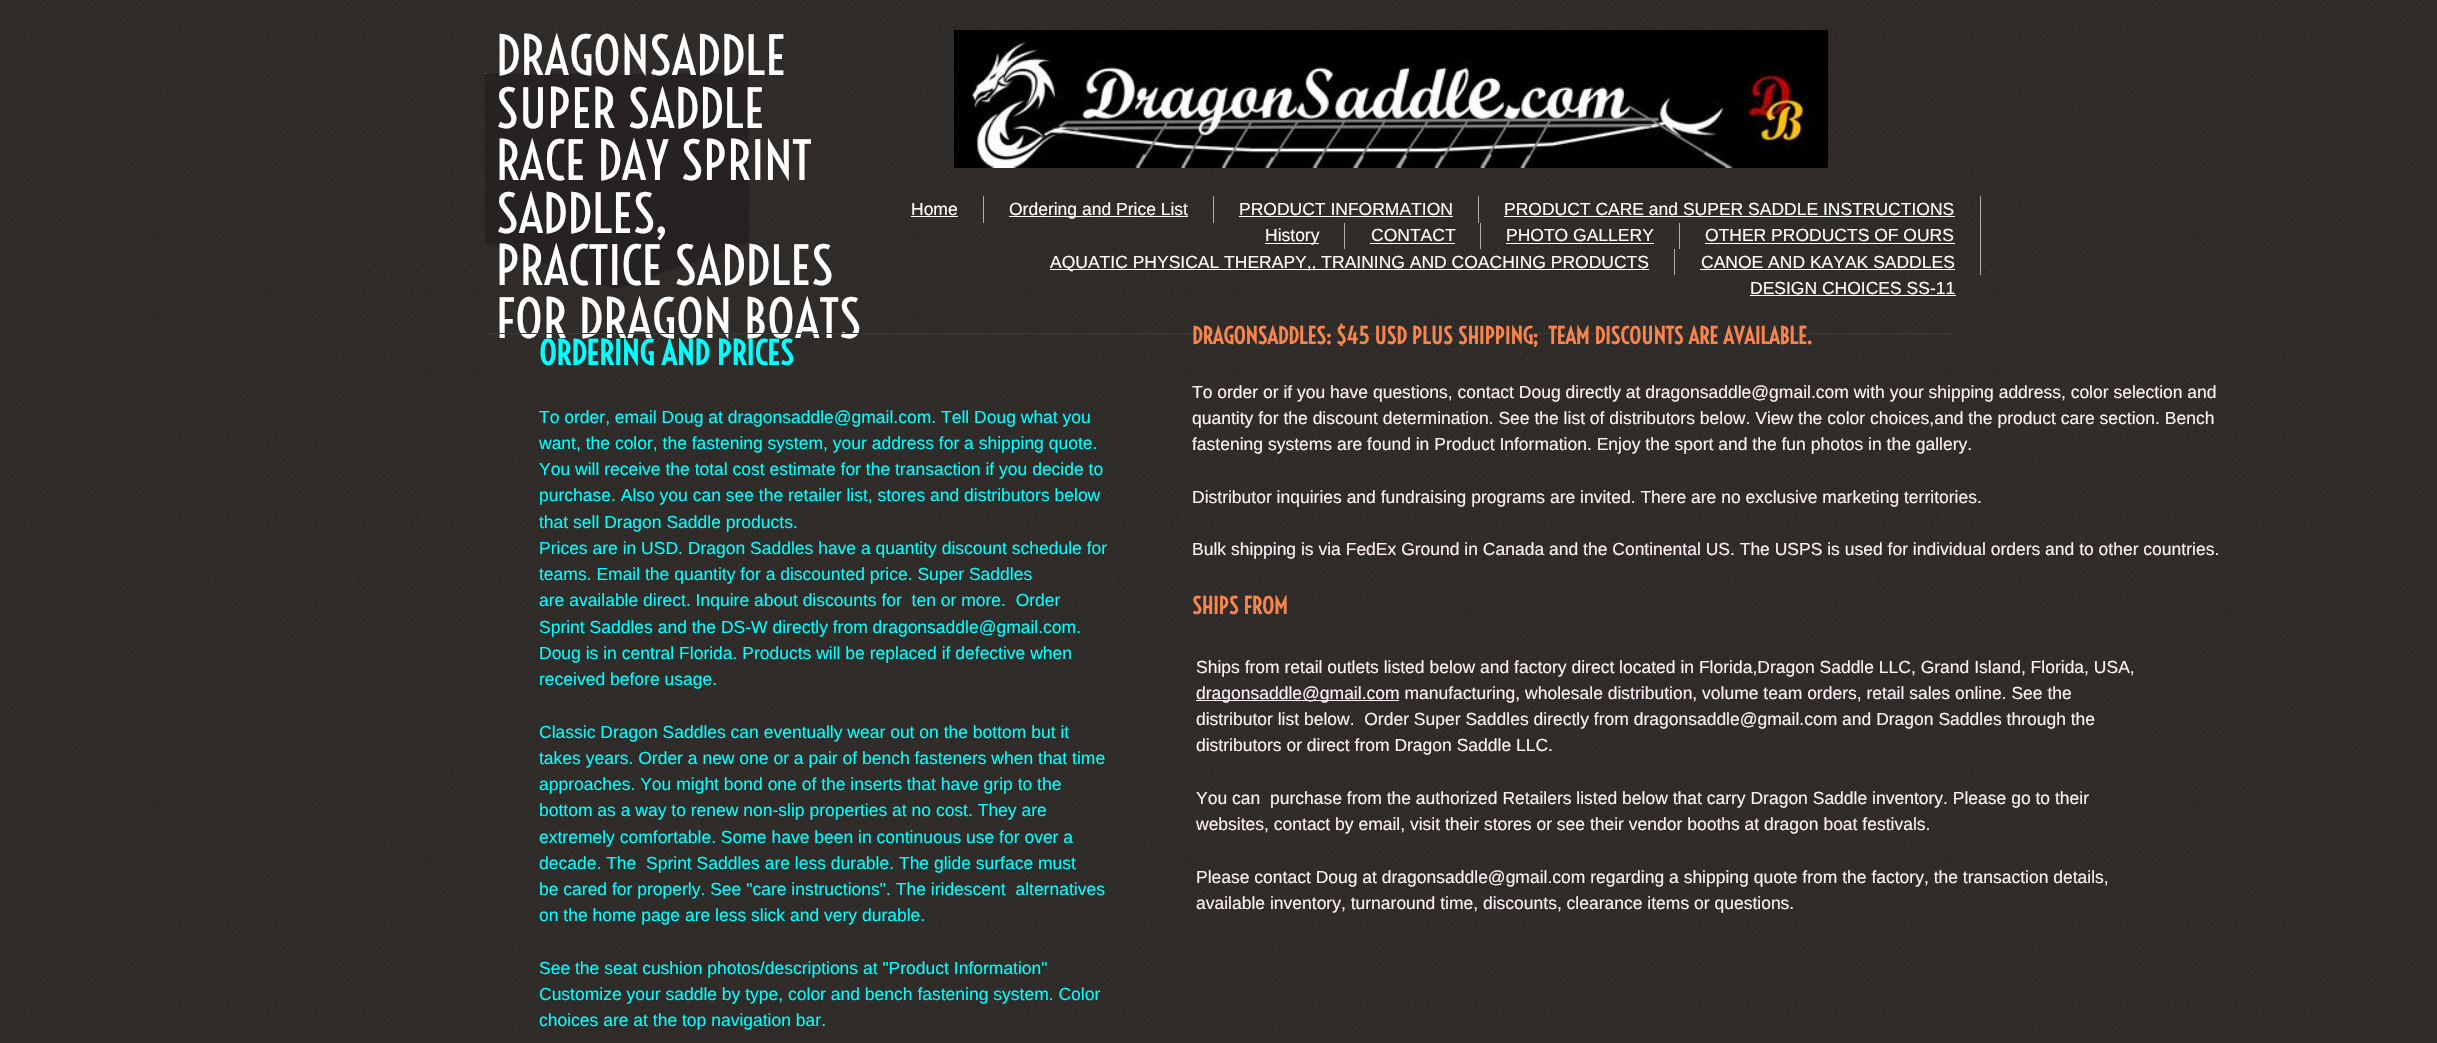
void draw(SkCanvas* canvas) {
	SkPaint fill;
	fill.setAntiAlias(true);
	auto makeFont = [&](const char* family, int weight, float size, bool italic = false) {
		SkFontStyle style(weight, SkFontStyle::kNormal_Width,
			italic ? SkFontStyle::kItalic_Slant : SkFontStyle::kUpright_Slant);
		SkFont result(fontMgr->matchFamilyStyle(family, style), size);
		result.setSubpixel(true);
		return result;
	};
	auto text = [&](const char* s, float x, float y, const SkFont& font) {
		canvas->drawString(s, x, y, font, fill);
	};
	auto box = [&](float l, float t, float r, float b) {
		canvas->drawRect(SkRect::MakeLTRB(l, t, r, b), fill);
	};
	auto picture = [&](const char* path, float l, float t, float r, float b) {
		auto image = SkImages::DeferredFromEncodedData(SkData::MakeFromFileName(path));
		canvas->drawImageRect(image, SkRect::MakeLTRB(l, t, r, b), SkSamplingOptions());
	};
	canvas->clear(0xFF302C2A);
	picture("image0.png", 3, 0, 2426, 1033);
	picture("image1.png", 485, 73, 487, 74);
	picture("image2.png", 954, 30, 1828, 168);
	picture("image3.png", 485, 73, 487, 74);
	picture("image4.png", 485, 73, 487, 74);
	picture("image5.png", 485, 73, 487, 74);
	picture("image6.png", 485, 73, 487, 74);
	picture("image7.png", 485, 73, 487, 74);
	picture("image8.png", 485, 73, 487, 74);
	picture("image9.png", 485, 73, 749, 290);
	fill.setColor(0xFFAEAEAE);
	box(983, 196, 984, 223);
	fill.setColor(0xFFFFFFFF);
	box(911, 216, 958, 217);
	fill.setColor(0xFFAEAEAE);
	box(1213, 196, 1214, 223);
	fill.setColor(0xFFFFFFFF);
	box(1009, 216, 1188, 217);
	fill.setColor(0xFFAEAEAE);
	box(1478, 196, 1479, 223);
	fill.setColor(0xFFFFFFFF);
	box(1239, 216, 1453, 217);
	fill.setColor(0xFFAEAEAE);
	box(1980, 196, 1981, 275);
	fill.setColor(0xFFFFFFFF);
	box(1504, 216, 1955, 217);
	fill.setColor(0xFFAEAEAE);
	box(1344, 223, 1345, 249);
	fill.setColor(0xFFFFFFFF);
	box(1265, 243, 1319, 244);
	fill.setColor(0xFFAEAEAE);
	box(1480, 223, 1481, 249);
	fill.setColor(0xFFFFFFFF);
	box(1370, 243, 1455, 244);
	fill.setColor(0xFFAEAEAE);
	box(1679, 223, 1680, 249);
	fill.setColor(0xFFFFFFFF);
	box(1506, 243, 1654, 244);
	box(1705, 243, 1955, 244);
	fill.setColor(0xFFAEAEAE);
	box(1674, 249, 1675, 275);
	fill.setColor(0xFFFFFFFF);
	box(1050, 269, 1649, 270);
	box(1700, 269, 1955, 270);
	box(1750, 295, 1956, 296);
	fill.setColor(0xFFFFF0F5);
	box(1196, 700, 1399, 701);
	auto font1 = makeFont("Voltaire", 400, 52.5f);
	fill.setColor(0xFFFFFFFF);
	text("DRAGONSADDLE", 496, 75, font1);
	text("SUPER SADDLE", 496, 128, font1);
	text("RACE DAY SPRINT", 496, 180, font1);
	text("SADDLES,", 496, 233, font1);
	text("PRACTICE SADDLES", 496, 285, font1);
	text("FOR DRAGON BOATS", 496, 338, font1);
	auto font2 = makeFont("Liberation Sans", 400, 17.5f);
	text("Home", 911, 215, font2);
	text("Ordering and Price List", 1009, 215, font2);
	text("PRODUCT INFORMATION", 1239, 215, font2);
	text("PRODUCT CARE and SUPER SADDLE INSTRUCTIONS", 1504, 215, font2);
	text("History", 1265, 241, font2);
	text("CONTACT", 1371, 241, font2);
	text("PHOTO GALLERY", 1506, 241, font2);
	text("OTHER PRODUCTS OF OURS", 1705, 241, font2);
	text("AQUATIC PHYSICAL THERAPY,, TRAINING AND COACHING PRODUCTS", 1050, 268, font2);
	text("CANOE AND KAYAK SADDLES", 1701, 268, font2);
	text("DESIGN CHOICES SS-11", 1750, 294, font2);
	fill.setColor(0xFFFFF0F5);
	text("To order or if you have questions, contact Doug directly at dragonsaddle@gmail.com with your shipping address, color selection and", 1192, 398, font2);
	text("quantity for the discount determination. See the list of distributors below. View the color choices,and the product care section. Bench", 1192, 424, font2);
	text("fastening systems are found in Product Information. Enjoy the sport and the fun photos in the gallery.", 1192, 450, font2);
	text("Distributor inquiries and fundraising programs are invited. There are no exclusive marketing territories.", 1192, 503, font2);
	text("Bulk shipping is via FedEx Ground in Canada and the Continental US. The USPS is used for individual orders and to other countries.", 1192, 555, font2);
	auto font3 = makeFont("Voltaire", 700, 22.5f);
	fill.setColor(0xFFF9854E);
	text("SHIPS FROM", 1192, 614, font3);
	fill.setColor(0xFF3D3A38);
	box(485, 333, 1954, 334);
	fill.setColor(0xFFF9854E);
	text("DRAGONSADDLES: $45 USD PLUS SHIPPING;  TEAM DISCOUNTS ARE AVAILABLE.", 1192, 344, font3);
	auto font4 = makeFont("Voltaire", 700, 32.5f);
	fill.setColor(0xFF00FFFF);
	text("ORDERING AND PRICES", 539, 365, font4);
	text("To order, email Doug at dragonsaddle@gmail.com. Tell Doug what you", 539, 423, font2);
	text("want, the color, the fastening system, your address for a shipping quote.", 539, 449, font2);
	text("You will receive the total cost estimate for the transaction if you decide to", 539, 475, font2);
	text("purchase. Also you can see the retailer list, stores and distributors below", 539, 501, font2);
	text("that sell Dragon Saddle products.", 539, 528, font2);
	text("Prices are in USD. Dragon Saddles have a quantity discount schedule for", 539, 554, font2);
	text("teams. Email the quantity for a discounted price. Super Saddles", 539, 580, font2);
	text("are available direct. Inquire about discounts for  ten or more.  Order", 539, 606, font2);
	text("Sprint Saddles and the DS-W directly from dragonsaddle@gmail.com.", 539, 633, font2);
	text("Doug is in central Florida. Products will be replaced if defective when", 539, 659, font2);
	text("received before usage.", 539, 685, font2);
	text("Classic Dragon Saddles can eventually wear out on the bottom but it", 539, 738, font2);
	text("takes years. Order a new one or a pair of bench fasteners when that time", 539, 764, font2);
	text("approaches. You might bond one of the inserts that have grip to the", 539, 790, font2);
	text("bottom as a way to renew non-slip properties at no cost. They are", 539, 816, font2);
	text("extremely comfortable. Some have been in continuous use for over a", 539, 843, font2);
	text("decade. The  Sprint Saddles are less durable. The glide surface must", 539, 869, font2);
	text("be cared for properly. See \"care instructions\". The iridescent  alternatives", 539, 895, font2);
	text("on the home page are less slick and very durable.", 539, 921, font2);
	text("See the seat cushion photos/descriptions at \"Product Information\"", 539, 974, font2);
	text("Customize your saddle by type, color and bench fastening system. Color", 539, 1000, font2);
	text("choices are at the top navigation bar.", 539, 1026, font2);
	fill.setColor(0xFFFFF0F5);
	text("Ships from retail outlets listed below and factory direct located in Florida,Dragon Saddle LLC, Grand Island, Florida, USA,", 1196, 673, font2);
	text("dragonsaddle@gmail.com manufacturing, wholesale distribution, volume team orders, retail sales online. See the", 1196, 699, font2);
	text("distributor list below.  Order Super Saddles directly from dragonsaddle@gmail.com and Dragon Saddles through the", 1196, 725, font2);
	text("distributors or direct from Dragon Saddle LLC.", 1196, 751, font2);
	text("You can  purchase from the authorized Retailers listed below that carry Dragon Saddle inventory. Please go to their", 1196, 804, font2);
	text("websites, contact by email, visit their stores or see their vendor booths at dragon boat festivals.", 1196, 830, font2);
	text("Please contact Doug at dragonsaddle@gmail.com regarding a shipping quote from the factory, the transaction details,", 1196, 883, font2);
	text("available inventory, turnaround time, discounts, clearance items or questions.", 1196, 909, font2);
}
